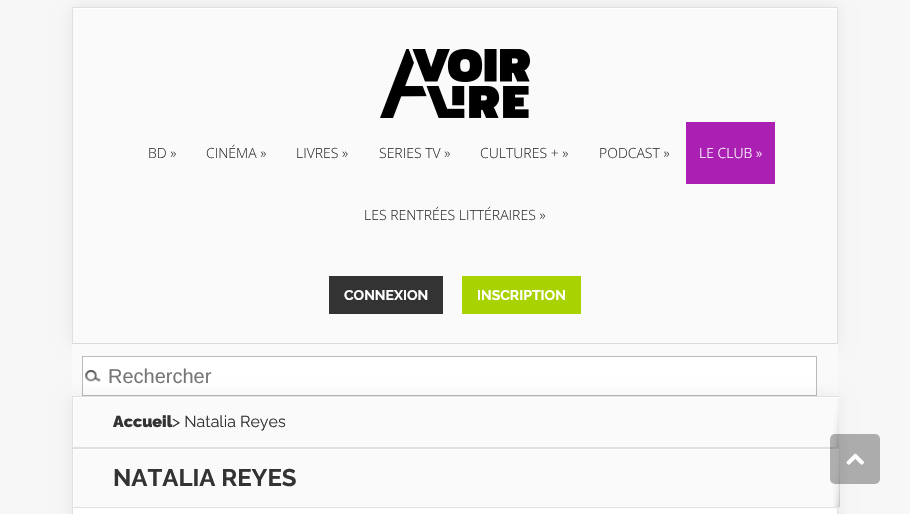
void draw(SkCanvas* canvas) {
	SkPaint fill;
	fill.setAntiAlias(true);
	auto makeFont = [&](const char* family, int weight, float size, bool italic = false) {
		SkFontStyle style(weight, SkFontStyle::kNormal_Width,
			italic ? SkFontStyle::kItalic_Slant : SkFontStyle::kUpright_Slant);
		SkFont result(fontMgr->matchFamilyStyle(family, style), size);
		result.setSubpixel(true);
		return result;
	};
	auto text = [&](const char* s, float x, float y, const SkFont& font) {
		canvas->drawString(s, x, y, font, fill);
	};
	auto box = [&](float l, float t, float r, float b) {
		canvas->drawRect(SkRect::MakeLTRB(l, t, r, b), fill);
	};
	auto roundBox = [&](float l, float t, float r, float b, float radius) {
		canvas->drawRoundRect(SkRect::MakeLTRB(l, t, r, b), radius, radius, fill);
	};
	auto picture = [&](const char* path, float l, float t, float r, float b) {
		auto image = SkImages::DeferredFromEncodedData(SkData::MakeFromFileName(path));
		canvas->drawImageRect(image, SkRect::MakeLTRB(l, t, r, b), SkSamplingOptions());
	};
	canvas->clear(0xFFF7F7F7);
	fill.setColor(0x12000000);
	fill.setMaskFilter(SkMaskFilter::MakeBlur(kNormal_SkBlurStyle, 7.5f));
	canvas->drawRect(SkRect::MakeLTRB(72, 7, 838, 344), fill);
	fill.setMaskFilter(nullptr);
	fill.setColor(0xFFFAFAFA);
	box(73, 9, 837, 343);
	fill.setColor(0xFFDADADA);
	box(73, 343, 837, 344);
	fill.setColor(0xFFFFFFFF);
	box(73, 8, 837, 9);
	fill.setColor(0xFFE0E0E0);
	box(72, 7, 838, 8);
	box(837, 7, 838, 344);
	box(72, 7, 73, 344);
	picture("image0.png", 380, 49, 530, 118);
	fill.setColor(0xFFA920B2);
	box(686, 122, 775, 184);
	fill.setColor(0xFF333333);
	box(329, 276, 443, 314);
	fill.setColor(0xFFA9D300);
	box(462, 276, 581, 314);
	fill.setColor(0xFFFAFAFA);
	box(72, 344, 838, 396);
	fill.setColor(0xFFFFFFFF);
	box(83, 357, 816, 395);
	picture("image1.png", 85, 370, 101, 382);
	fill.setStyle(SkPaint::kStroke_Style);
	fill.setStrokeWidth(1);
	fill.setColor(0xFFBBBBBB);
	canvas->drawRect(SkRect::MakeLTRB(82.5f, 356.5f, 816.5f, 395.5f), fill);
	fill.setStyle(SkPaint::kFill_Style);
	fill.setColor(0x12000000);
	fill.setMaskFilter(SkMaskFilter::MakeBlur(kNormal_SkBlurStyle, 7.5f));
	canvas->drawRect(SkRect::MakeLTRB(72, 396, 838, 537), fill);
	fill.setMaskFilter(nullptr);
	fill.setColor(0xFFFFFFFF);
	box(73, 508, 837, 514);
	fill.setColor(0xFFE0E0E0);
	box(837, 508, 838, 514);
	box(72, 396, 73, 514);
	fill.setColor(0xFFFAFAFA);
	box(74, 398, 839, 447);
	canvas->save();
	canvas->clipRect(SkRect::MakeLTRB(73, 397, 839, 447));
	fill.setColor(0xFFFFFFFF);
	canvas->drawPath(SkPathBuilder(SkPathFillType::kEvenOdd).moveTo(-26, 298).lineTo(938, 298).lineTo(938, 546).lineTo(-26, 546).close().moveTo(74, 398).lineTo(840, 398).lineTo(840, 448).lineTo(74, 448).close().detach(), fill);
	canvas->restore();
	fill.setColor(0xFFE0E0E0);
	box(73, 396, 839, 397);
	box(73, 447, 839, 449);
	picture("image2.png", 833, 399, 839, 447);
	fill.setColor(0xFFFAFAFA);
	box(74, 450, 839, 507);
	canvas->save();
	canvas->clipRect(SkRect::MakeLTRB(73, 449, 839, 507));
	fill.setColor(0xFFFFFFFF);
	canvas->drawPath(SkPathBuilder(SkPathFillType::kEvenOdd).moveTo(-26, 350).lineTo(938, 350).lineTo(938, 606).lineTo(-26, 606).close().moveTo(74, 450).lineTo(840, 450).lineTo(840, 508).lineTo(74, 508).close().detach(), fill);
	canvas->restore();
	fill.setColor(0xFFE0E0E0);
	box(73, 507, 839, 508);
	picture("image3.png", 833, 446, 840, 507);
	fill.setColor(0x4D000000);
	roundBox(830, 434, 880, 484, 5);
	picture("image4.png", 846, 453, 864, 465);
	auto font1 = makeFont("Open Sans", 300, 14);
	fill.setColor(0xFF333333);
	text("BD »", 148, 158, font1);
	text("CINÉMA »", 206, 158, font1);
	text("LIVRES »", 296, 158, font1);
	text("SERIES TV »", 379, 158, font1);
	text("CULTURES + »", 480, 158, font1);
	text("PODCAST »", 599, 158, font1);
	fill.setColor(0xFFFFFFFF);
	text("LE CLUB »", 699, 158, font1);
	fill.setColor(0xFF333333);
	text("LES RENTRÉES LITTÉRAIRES »", 364, 220, font1);
	auto font2 = makeFont("Raleway", 700, 14);
	fill.setColor(0xFFFFFFFF);
	text("CONNEXION", 344, 300, font2);
	text("INSCRIPTION", 477, 300, font2);
	auto font3 = makeFont("Liberation Sans", 400, 20);
	fill.setColor(0xFF757575);
	text("Rechercher", 108, 383, font3);
	auto font4 = makeFont("Raleway", 900, 16);
	fill.setColor(0xFF333333);
	text("Accueil", 113, 427, font4);
	auto font5 = makeFont("Raleway", 400, 16);
	text("> Natalia Reyes", 172, 427, font5);
	auto font6 = makeFont("Raleway", 700, 24);
	text("NATALIA REYES", 113, 486, font6);
}
